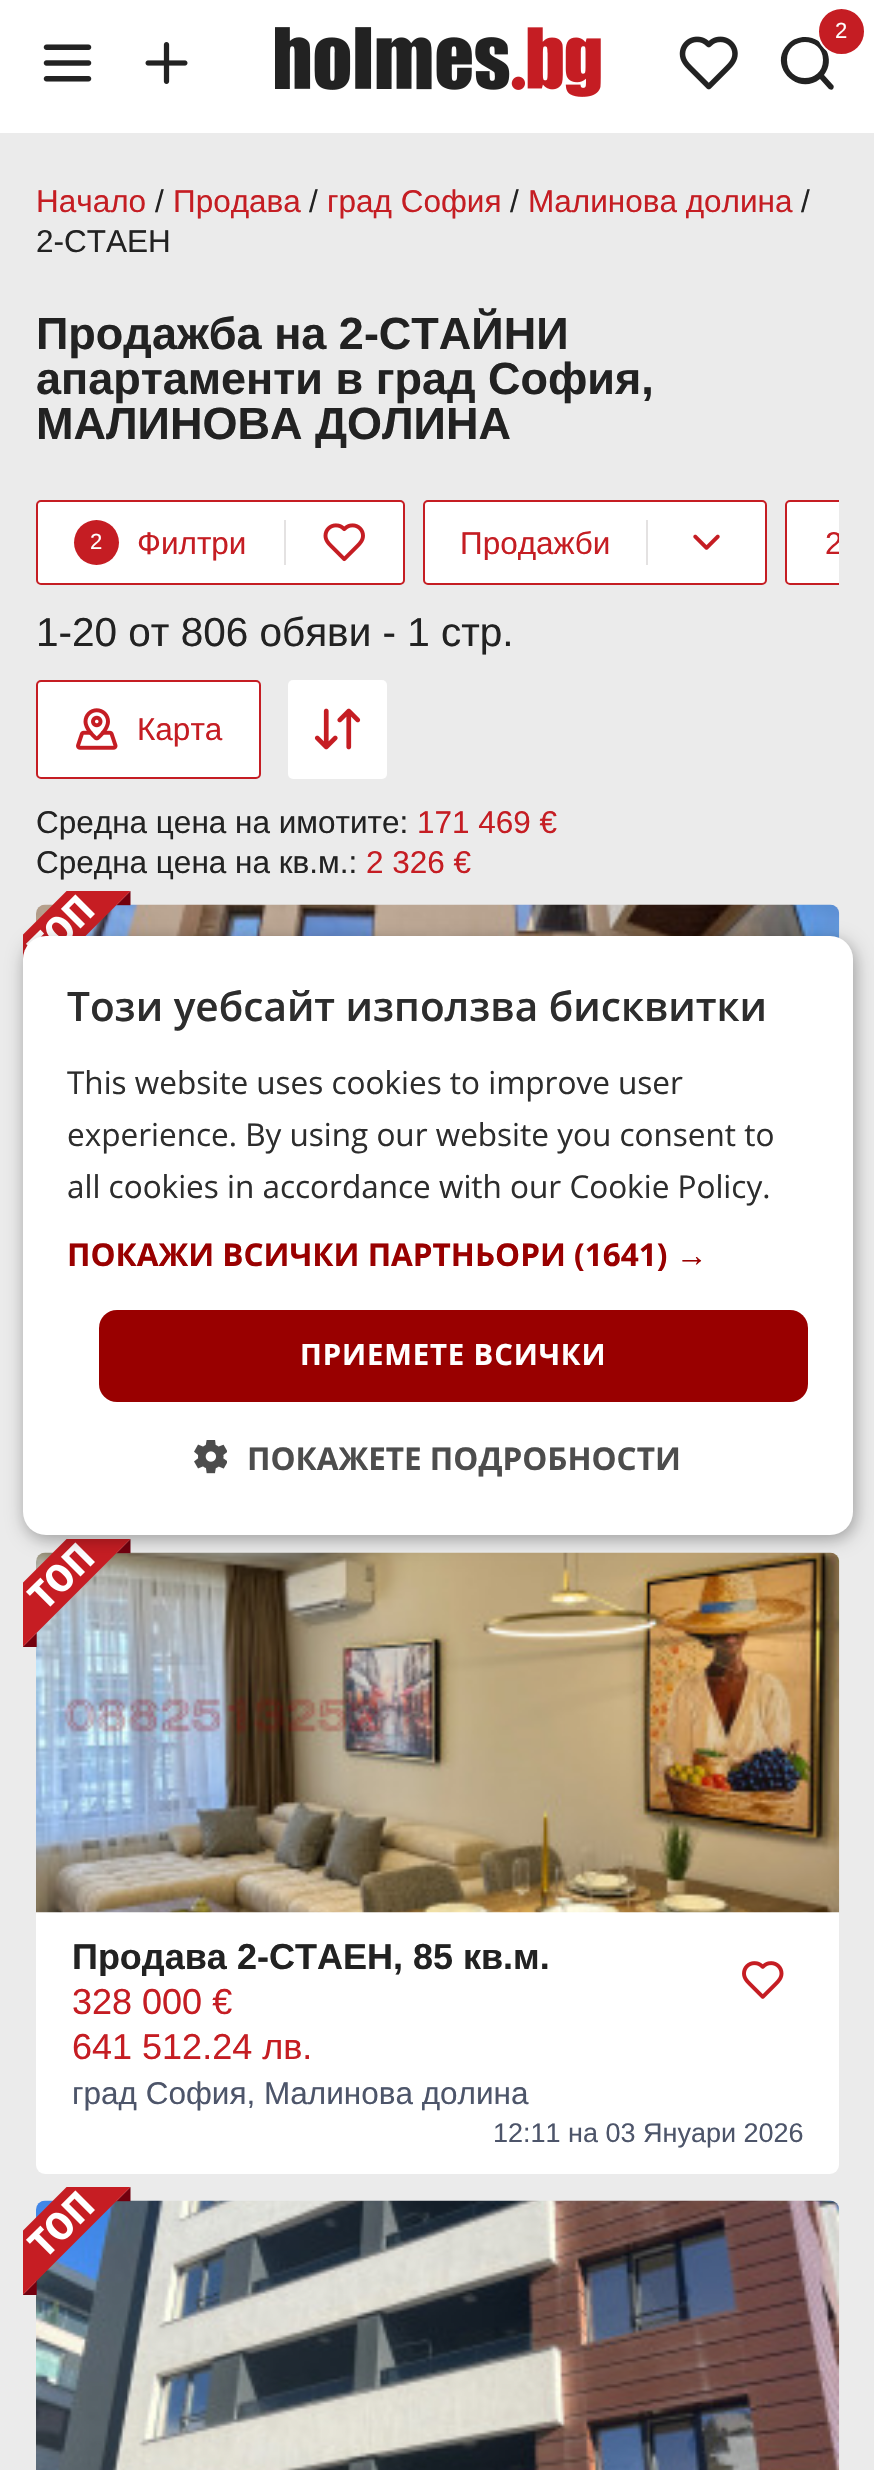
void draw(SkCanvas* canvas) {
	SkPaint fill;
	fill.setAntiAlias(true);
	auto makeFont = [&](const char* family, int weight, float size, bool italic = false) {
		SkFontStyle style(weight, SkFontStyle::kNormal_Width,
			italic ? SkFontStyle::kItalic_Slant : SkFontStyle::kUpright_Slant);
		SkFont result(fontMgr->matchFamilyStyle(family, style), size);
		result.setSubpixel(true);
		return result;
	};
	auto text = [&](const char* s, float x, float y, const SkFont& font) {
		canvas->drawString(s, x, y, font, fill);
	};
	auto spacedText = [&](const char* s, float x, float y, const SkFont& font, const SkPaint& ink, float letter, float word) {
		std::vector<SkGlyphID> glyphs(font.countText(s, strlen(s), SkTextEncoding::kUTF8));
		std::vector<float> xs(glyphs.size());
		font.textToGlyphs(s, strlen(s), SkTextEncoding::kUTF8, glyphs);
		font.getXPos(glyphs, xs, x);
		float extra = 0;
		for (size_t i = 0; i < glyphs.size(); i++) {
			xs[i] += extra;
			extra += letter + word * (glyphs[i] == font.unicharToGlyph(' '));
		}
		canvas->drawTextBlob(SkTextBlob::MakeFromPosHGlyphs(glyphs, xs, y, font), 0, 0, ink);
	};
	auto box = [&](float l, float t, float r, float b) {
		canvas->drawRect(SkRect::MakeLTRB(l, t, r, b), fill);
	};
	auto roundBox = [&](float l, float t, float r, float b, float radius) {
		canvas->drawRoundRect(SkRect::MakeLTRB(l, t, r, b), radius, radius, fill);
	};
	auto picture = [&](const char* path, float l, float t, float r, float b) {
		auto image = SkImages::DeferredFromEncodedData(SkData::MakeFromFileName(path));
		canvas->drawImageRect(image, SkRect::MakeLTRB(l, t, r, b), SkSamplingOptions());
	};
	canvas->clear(0xFFEBEBEB);
	fill.setColor(0xFFFFFFFF);
	box(0, 0, 874, 133);
	picture("image0.png", 43, 44, 92, 82);
	picture("image1.png", 145, 42, 188, 84);
	picture("image2.png", 275, 27, 601, 97);
	fill.setColor(0xFF222222);
	canvas->drawPath(SkPathBuilder(SkPathFillType::kEvenOdd).moveTo(805, 37).cubicTo(799, 37, 793, 39, 788, 44).cubicTo(767, 65, 797, 97, 820, 79).lineTo(829, 89).cubicTo(831, 90, 832, 90, 833, 89).cubicTo(834, 87, 834, 86, 833, 85).lineTo(824, 75).cubicTo(836, 60, 825, 37, 805, 37).close().moveTo(787, 60).cubicTo(787, 36, 823, 36, 823, 60).cubicTo(823, 84, 787, 84, 787, 60).close().detach(), fill);
	fill.setColor(0xFFC51D23);
	canvas->drawCircle(841.5f, 31.5f, 23.5f, fill);
	fill.setStyle(SkPaint::kStroke_Style);
	fill.setStrokeWidth(2);
	fill.setColor(0xFFFFFFFF);
	canvas->drawCircle(841.5f, 31.5f, 23.5f, fill);
	picture("image3.png", 679, 36, 738, 90);
	fill.setStyle(SkPaint::kFill_Style);
	canvas->drawRoundRect(SkRect::MakeLTRB(37, 501, 404, 584), 4, 4, fill);
	fill.setStyle(SkPaint::kStroke_Style);
	fill.setColor(0xFFC51D23);
	canvas->drawRoundRect(SkRect::MakeLTRB(37, 501, 404, 584), 4, 4, fill);
	fill.setStyle(SkPaint::kFill_Style);
	fill.setColor(0xFFFFFFFF);
	canvas->drawPath(SkPathBuilder().moveTo(43, 502).lineTo(284, 502).lineTo(284, 583).lineTo(43, 583).cubicTo(40, 583, 38, 581, 38, 578).lineTo(38, 507).cubicTo(38, 504, 40, 502, 43, 502).close().detach(), fill);
	fill.setColor(0xFFC51D23);
	canvas->drawCircle(96.5f, 542.5f, 22.5f, fill);
	fill.setColor(0xFFE4E2E2);
	box(284, 520, 286, 565);
	fill.setColor(0xFFFFFFFF);
	canvas->drawPath(SkPathBuilder().moveTo(286, 502).lineTo(398, 502).cubicTo(401, 502, 403, 504, 403, 507).lineTo(403, 578).cubicTo(403, 581, 401, 583, 398, 583).lineTo(286, 583).close().detach(), fill);
	picture("image4.png", 323, 523, 365, 562);
	canvas->drawRoundRect(SkRect::MakeLTRB(424, 501, 766, 584), 4, 4, fill);
	fill.setStyle(SkPaint::kStroke_Style);
	fill.setColor(0xFFC51D23);
	canvas->drawRoundRect(SkRect::MakeLTRB(424, 501, 766, 584), 4, 4, fill);
	fill.setStyle(SkPaint::kFill_Style);
	fill.setColor(0xFFFFFFFF);
	roundBox(425, 502, 646, 583, 5);
	fill.setColor(0xFFE4E2E2);
	box(646, 520, 648, 565);
	fill.setColor(0xFFFFFFFF);
	roundBox(648, 502, 765, 583, 5);
	picture("image5.png", 693, 534, 720, 550);
	canvas->drawPath(SkPathBuilder().moveTo(790, 500).lineTo(839, 500).lineTo(839, 585).lineTo(790, 585).cubicTo(787, 585, 785, 583, 785, 580).lineTo(785, 505).cubicTo(785, 502, 787, 500, 790, 500).close().detach(), fill);
	canvas->save();
	canvas->clipRect(SkRect::MakeLTRB(36, 500, 839, 585));
	fill.setStyle(SkPaint::kStroke_Style);
	fill.setColor(0xFFC51D23);
	canvas->drawRoundRect(SkRect::MakeLTRB(786, 501, 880, 584), 4, 4, fill);
	canvas->restore();
	fill.setStyle(SkPaint::kFill_Style);
	fill.setColor(0xFFFFFFFF);
	canvas->drawRoundRect(SkRect::MakeLTRB(37, 681, 260, 778), 4, 4, fill);
	fill.setStyle(SkPaint::kStroke_Style);
	fill.setColor(0xFFC51D23);
	canvas->drawRoundRect(SkRect::MakeLTRB(37, 681, 260, 778), 4, 4, fill);
	picture("image6.png", 76, 708, 118, 750);
	fill.setStyle(SkPaint::kFill_Style);
	fill.setColor(0xFFFFFFFF);
	roundBox(288, 680, 387, 779, 5);
	picture("image7.png", 314, 708, 361, 750);
	picture("image9.png", 36, 904, 840, 939);
	picture("image8.png", 23, 891, 131, 959);
	roundBox(36, 1553, 839, 2174, 9);
	picture("image11.png", 36, 1552, 840, 1913);
	picture("image10.png", 23, 1539, 131, 1647);
	picture("image12.png", 742, 1961, 784, 1999);
	picture("image14.png", 36, 2200, 840, 2470);
	picture("image13.png", 23, 2187, 131, 2295);
	fill.setColor(0x59000000);
	fill.setMaskFilter(SkMaskFilter::MakeBlur(kNormal_SkBlurStyle, 9));
	canvas->drawRoundRect(SkRect::MakeLTRB(25, 941, 855, 1539), 23, 23, fill);
	fill.setMaskFilter(nullptr);
	fill.setColor(0xFFFFFFFF);
	roundBox(23, 936, 853, 1535, 23);
	fill.setColor(0xFF990000);
	roundBox(99, 1310, 808, 1402, 18);
	picture("image15.png", 194, 1440, 227, 1474);
	auto font1 = makeFont("Liberation Sans", 400, 22);
	fill.setColor(0xFFFFFFFF);
	text("2", 835, 38, font1);
	auto font2 = makeFont("Liberation Sans", 400, 31.5f);
	fill.setColor(0xFFC51D23);
	text("Начало", 36, 212, font2);
	fill.setColor(0xFF222222);
	text("/", 155, 212, font2);
	fill.setColor(0xFFC51D23);
	text("Продава", 173, 212, font2);
	fill.setColor(0xFF222222);
	text("/", 309, 212, font2);
	fill.setColor(0xFFC51D23);
	text("град София", 327, 212, font2);
	fill.setColor(0xFF222222);
	text("/", 510, 212, font2);
	fill.setColor(0xFFC51D23);
	text("Малинова долина", 528, 212, font2);
	fill.setColor(0xFF222222);
	text("/", 801, 212, font2);
	text("2-СТАЕН", 36, 252, font2);
	auto font3 = makeFont("Liberation Sans", 700, 45);
	text("Продажба на 2-СТАЙНИ", 36, 349, font3);
	text("апартаменти в град София,", 36, 394, font3);
	text("МАЛИНОВА ДОЛИНА", 36, 439, font3);
	fill.setColor(0xFFFFFFFF);
	text("2", 90, 549, font1);
	fill.setColor(0xFFC51D23);
	text("Филтри", 137, 554, font2);
	canvas->save();
	canvas->clipRect(SkRect::MakeLTRB(461, 524, 610, 560));
	text("Продажби", 460, 554, font2);
	canvas->restore();
	canvas->save();
	canvas->clipRect(SkRect::MakeLTRB(824, 524, 839, 560));
	text("2", 825, 554, font2);
	canvas->restore();
	auto font4 = makeFont("Liberation Sans", 400, 40.5f);
	fill.setColor(0xFF222222);
	text("1-20 от 806 обяви - 1 стр.", 36, 646, font4);
	fill.setColor(0xFFC51D23);
	text("Карта", 137, 740, font2);
	fill.setColor(0xFF222222);
	text("Средна цена на имотите:", 36, 833, font2);
	fill.setColor(0xFFC51D23);
	text("171 469 €", 417, 833, font2);
	fill.setColor(0xFF222222);
	text("Средна цена на кв.м.:", 36, 873, font2);
	fill.setColor(0xFFC51D23);
	text("2 326 €", 366, 873, font2);
	canvas->save();
	canvas->clipRect(SkRect::MakeLTRB(72, 1940, 704, 1976));
	auto font5 = makeFont("Liberation Sans", 700, 36);
	fill.setColor(0xFF222222);
	text("Продава 2-СТАЕН, 85 кв.м.", 72, 1969, font5);
	canvas->restore();
	auto font6 = makeFont("Liberation Sans", 400, 36);
	fill.setColor(0xFFC51D23);
	text("328 000 €", 72, 2014, font6);
	text("641 512.24 лв.", 72, 2059, font6);
	fill.setColor(0xFF4D556A);
	text("град София, Малинова долина", 72, 2104, font2);
	auto font7 = makeFont("Liberation Sans", 400, 27);
	text("12:11 на 03 Януари 2026", 493, 2142, font7);
	auto font8 = makeFont("Open Sans", 600, 40.5f);
	fill.setColor(0xFF2D2D2D);
	text("Този уебсайт използва бисквитки", 67, 1021, font8);
	auto font9 = makeFont("Open Sans", 400, 31.5f);
	text("This website uses cookies to improve user", 67, 1094, font9);
	text("experience. By using our website you consent to", 67, 1146, font9);
	text("all cookies in accordance with our Cookie Policy.", 67, 1198, font9);
	auto font10 = makeFont("Open Sans", 700, 31.5f);
	fill.setColor(0xFF990000);
	text("ПОКАЖИ ВСИЧКИ ПАРТНЬОРИ (1641)", 67, 1266, font10);
	auto font11 = makeFont("Liberation Sans", 700, 31.5f);
	text("→", 676, 1266, font11);
	auto font12 = makeFont("Open Sans", 700, 29.25f);
	fill.setColor(0xFFFFFFFF);
	spacedText("ПРИЕМЕТЕ ВСИЧКИ", 300, 1365, font12, fill, 0.9f, 0);
	fill.setColor(0xFF4D4D4D);
	text("ПОКАЖЕТЕ ПОДРОБНОСТИ", 247, 1470, font10);
}
